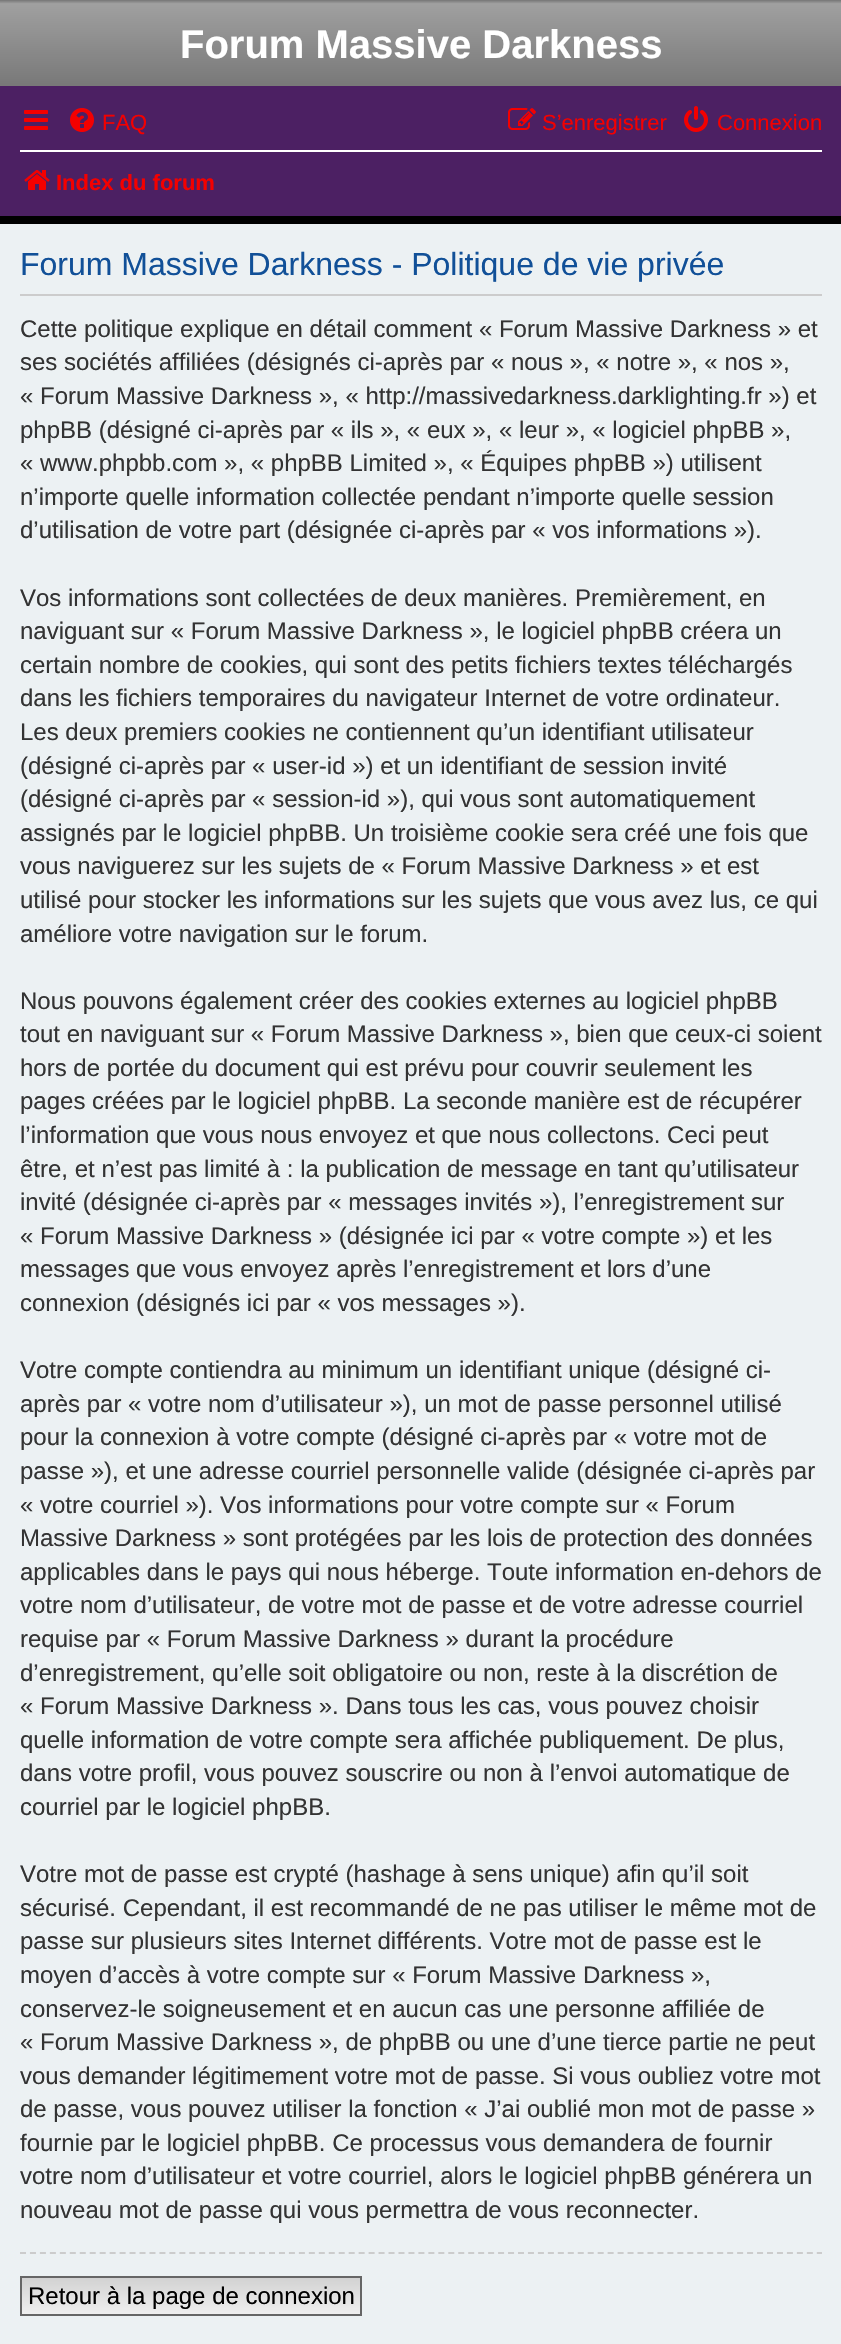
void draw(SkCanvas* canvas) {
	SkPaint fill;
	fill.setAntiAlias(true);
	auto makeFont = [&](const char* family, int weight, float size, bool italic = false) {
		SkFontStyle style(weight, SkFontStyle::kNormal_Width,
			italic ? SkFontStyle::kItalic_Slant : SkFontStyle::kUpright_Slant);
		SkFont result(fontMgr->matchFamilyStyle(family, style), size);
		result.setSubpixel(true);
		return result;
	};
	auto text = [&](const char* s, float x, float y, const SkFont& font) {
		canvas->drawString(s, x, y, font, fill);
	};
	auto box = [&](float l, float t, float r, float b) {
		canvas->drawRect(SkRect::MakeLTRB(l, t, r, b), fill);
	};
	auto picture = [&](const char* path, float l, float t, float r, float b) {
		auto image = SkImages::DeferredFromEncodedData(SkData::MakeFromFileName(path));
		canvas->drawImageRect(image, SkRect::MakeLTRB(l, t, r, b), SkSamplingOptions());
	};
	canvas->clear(0xFF000000);
	{
		const SkColor colors[] = {0xFF757575, 0xFFA0A0A0, 0xFF494949};
		const float stops[] = {0, 0.02f, 1};
		const SkPoint ends[] = {{421, 0}, {421, 184}};
		fill.setShader(SkGradientShader::MakeLinear(ends, colors, stops, 3, SkTileMode::kClamp));
		fill.setAlpha(255);
	}
	box(0, 0, 841, 86);
	fill.setShader(nullptr);
	fill.setColor(0xFF4C2063);
	box(0, 86, 841, 216);
	picture("image0.png", 24, 110, 48, 130);
	picture("image1.png", 70, 108, 94, 132);
	picture("image2.png", 508, 108, 536, 130);
	picture("image3.png", 684, 106, 708, 132);
	fill.setColor(0xFFFFFFFF);
	box(20, 150, 822, 152);
	picture("image4.png", 24, 170, 50, 190);
	fill.setColor(0xFFECF1F3);
	box(0, 224, 841, 2344);
	fill.setColor(0xFFCCCCCC);
	box(20, 294, 822, 296);
	fill.setStyle(SkPaint::kStroke_Style);
	fill.setStrokeWidth(2);
	fill.setPathEffect(SkDashPathEffect::Make({{6, 3.96f}}, 0));
	canvas->drawPath(SkPathBuilder().moveTo(20, 2253).lineTo(822, 2253).detach(), fill);
	fill.setPathEffect(nullptr);
	fill.setStyle(SkPaint::kFill_Style);
	{
		const SkColor colors[] = {0xFFD2D2D2, 0xFFEFEFEF};
		const float stops[] = {0, 1};
		const SkPoint ends[] = {{191, 2278}, {191, 2314}};
		fill.setShader(SkGradientShader::MakeLinear(ends, colors, stops, 2, SkTileMode::kClamp));
		fill.setAlpha(255);
	}
	box(22, 2278, 360, 2314);
	fill.setStyle(SkPaint::kStroke_Style);
	fill.setShader(nullptr);
	fill.setColor(0xFF666666);
	canvas->drawRect(SkRect::MakeLTRB(21, 2277, 361, 2315), fill);
	auto font1 = makeFont("Liberation Sans", 700, 40);
	fill.setStyle(SkPaint::kFill_Style);
	fill.setColor(0xFFFFFFFF);
	text("Forum Massive Darkness", 180, 58, font1);
	auto font2 = makeFont("Liberation Sans", 400, 22);
	fill.setColor(0xFFF40000);
	text("FAQ", 102, 130, font2);
	text("S’enregistrer", 542, 130, font2);
	text("Connexion", 717, 130, font2);
	auto font3 = makeFont("Liberation Sans", 700, 22);
	text("Index du forum", 56, 190, font3);
	auto font4 = makeFont("Liberation Sans", 400, 32);
	fill.setColor(0xFF115098);
	text("Forum Massive Darkness - Politique de vie privée", 20, 275, font4);
	auto font5 = makeFont("Liberation Sans", 400, 24);
	fill.setColor(0xFF333333);
	text("Cette politique explique en détail comment « Forum Massive Darkness » et", 20, 337, font5);
	text("ses sociétés affiliées (désignés ci-après par « nous », « notre », « nos »,", 20, 370, font5);
	text("« Forum Massive Darkness », « http://massivedarkness.darklighting.fr ») et", 20, 404, font5);
	text("phpBB (désigné ci-après par « ils », « eux », « leur », « logiciel phpBB »,", 20, 438, font5);
	text("« www.phpbb.com », « phpBB Limited », « Équipes phpBB ») utilisent", 20, 471, font5);
	text("n’importe quelle information collectée pendant n’importe quelle session", 20, 505, font5);
	text("d’utilisation de votre part (désignée ci-après par « vos informations »).", 20, 538, font5);
	text("Vos informations sont collectées de deux manières. Premièrement, en", 20, 606, font5);
	text("naviguant sur « Forum Massive Darkness », le logiciel phpBB créera un", 20, 639, font5);
	text("certain nombre de cookies, qui sont des petits fichiers textes téléchargés", 20, 673, font5);
	text("dans les fichiers temporaires du navigateur Internet de votre ordinateur.", 20, 706, font5);
	text("Les deux premiers cookies ne contiennent qu’un identifiant utilisateur", 20, 740, font5);
	text("(désigné ci-après par « user-id ») et un identifiant de session invité", 20, 774, font5);
	text("(désigné ci-après par « session-id »), qui vous sont automatiquement", 20, 807, font5);
	text("assignés par le logiciel phpBB. Un troisième cookie sera créé une fois que", 20, 841, font5);
	text("vous naviguerez sur les sujets de « Forum Massive Darkness » et est", 20, 874, font5);
	text("utilisé pour stocker les informations sur les sujets que vous avez lus, ce qui", 20, 908, font5);
	text("améliore votre navigation sur le forum.", 20, 942, font5);
	text("Nous pouvons également créer des cookies externes au logiciel phpBB", 20, 1009, font5);
	text("tout en naviguant sur « Forum Massive Darkness », bien que ceux-ci soient", 20, 1042, font5);
	text("hors de portée du document qui est prévu pour couvrir seulement les", 20, 1076, font5);
	text("pages créées par le logiciel phpBB. La seconde manière est de récupérer", 20, 1109, font5);
	text("l’information que vous nous envoyez et que nous collectons. Ceci peut", 20, 1143, font5);
	text("être, et n’est pas limité à : la publication de message en tant qu’utilisateur", 20, 1177, font5);
	text("invité (désignée ci-après par « messages invités »), l’enregistrement sur", 20, 1210, font5);
	text("« Forum Massive Darkness » (désignée ici par « votre compte ») et les", 20, 1244, font5);
	text("messages que vous envoyez après l’enregistrement et lors d’une", 20, 1277, font5);
	text("connexion (désignés ici par « vos messages »).", 20, 1311, font5);
	text("Votre compte contiendra au minimum un identifiant unique (désigné ci-", 20, 1378, font5);
	text("après par « votre nom d’utilisateur »), un mot de passe personnel utilisé", 20, 1412, font5);
	text("pour la connexion à votre compte (désigné ci-après par « votre mot de", 20, 1445, font5);
	text("passe »), et une adresse courriel personnelle valide (désignée ci-après par", 20, 1479, font5);
	text("« votre courriel »). Vos informations pour votre compte sur « Forum", 20, 1513, font5);
	text("Massive Darkness » sont protégées par les lois de protection des données", 20, 1546, font5);
	text("applicables dans le pays qui nous héberge. Toute information en-dehors de", 20, 1580, font5);
	text("votre nom d’utilisateur, de votre mot de passe et de votre adresse courriel", 20, 1613, font5);
	text("requise par « Forum Massive Darkness » durant la procédure", 20, 1647, font5);
	text("d’enregistrement, qu’elle soit obligatoire ou non, reste à la discrétion de", 20, 1681, font5);
	text("« Forum Massive Darkness ». Dans tous les cas, vous pouvez choisir", 20, 1714, font5);
	text("quelle information de votre compte sera affichée publiquement. De plus,", 20, 1748, font5);
	text("dans votre profil, vous pouvez souscrire ou non à l’envoi automatique de", 20, 1781, font5);
	text("courriel par le logiciel phpBB.", 20, 1815, font5);
	text("Votre mot de passe est crypté (hashage à sens unique) afin qu’il soit", 20, 1882, font5);
	text("sécurisé. Cependant, il est recommandé de ne pas utiliser le même mot de", 20, 1916, font5);
	text("passe sur plusieurs sites Internet différents. Votre mot de passe est le", 20, 1949, font5);
	text("moyen d’accès à votre compte sur « Forum Massive Darkness »,", 20, 1983, font5);
	text("conservez-le soigneusement et en aucun cas une personne affiliée de", 20, 2017, font5);
	text("« Forum Massive Darkness », de phpBB ou une d’une tierce partie ne peut", 20, 2050, font5);
	text("vous demander légitimement votre mot de passe. Si vous oubliez votre mot", 20, 2084, font5);
	text("de passe, vous pouvez utiliser la fonction « J’ai oublié mon mot de passe »", 20, 2117, font5);
	text("fournie par le logiciel phpBB. Ce processus vous demandera de fournir", 20, 2151, font5);
	text("votre nom d’utilisateur et votre courriel, alors le logiciel phpBB générera un", 20, 2184, font5);
	text("nouveau mot de passe qui vous permettra de vous reconnecter.", 20, 2218, font5);
	fill.setColor(0xFF000000);
	text("Retour à la page de connexion", 28, 2304, font5);
}
